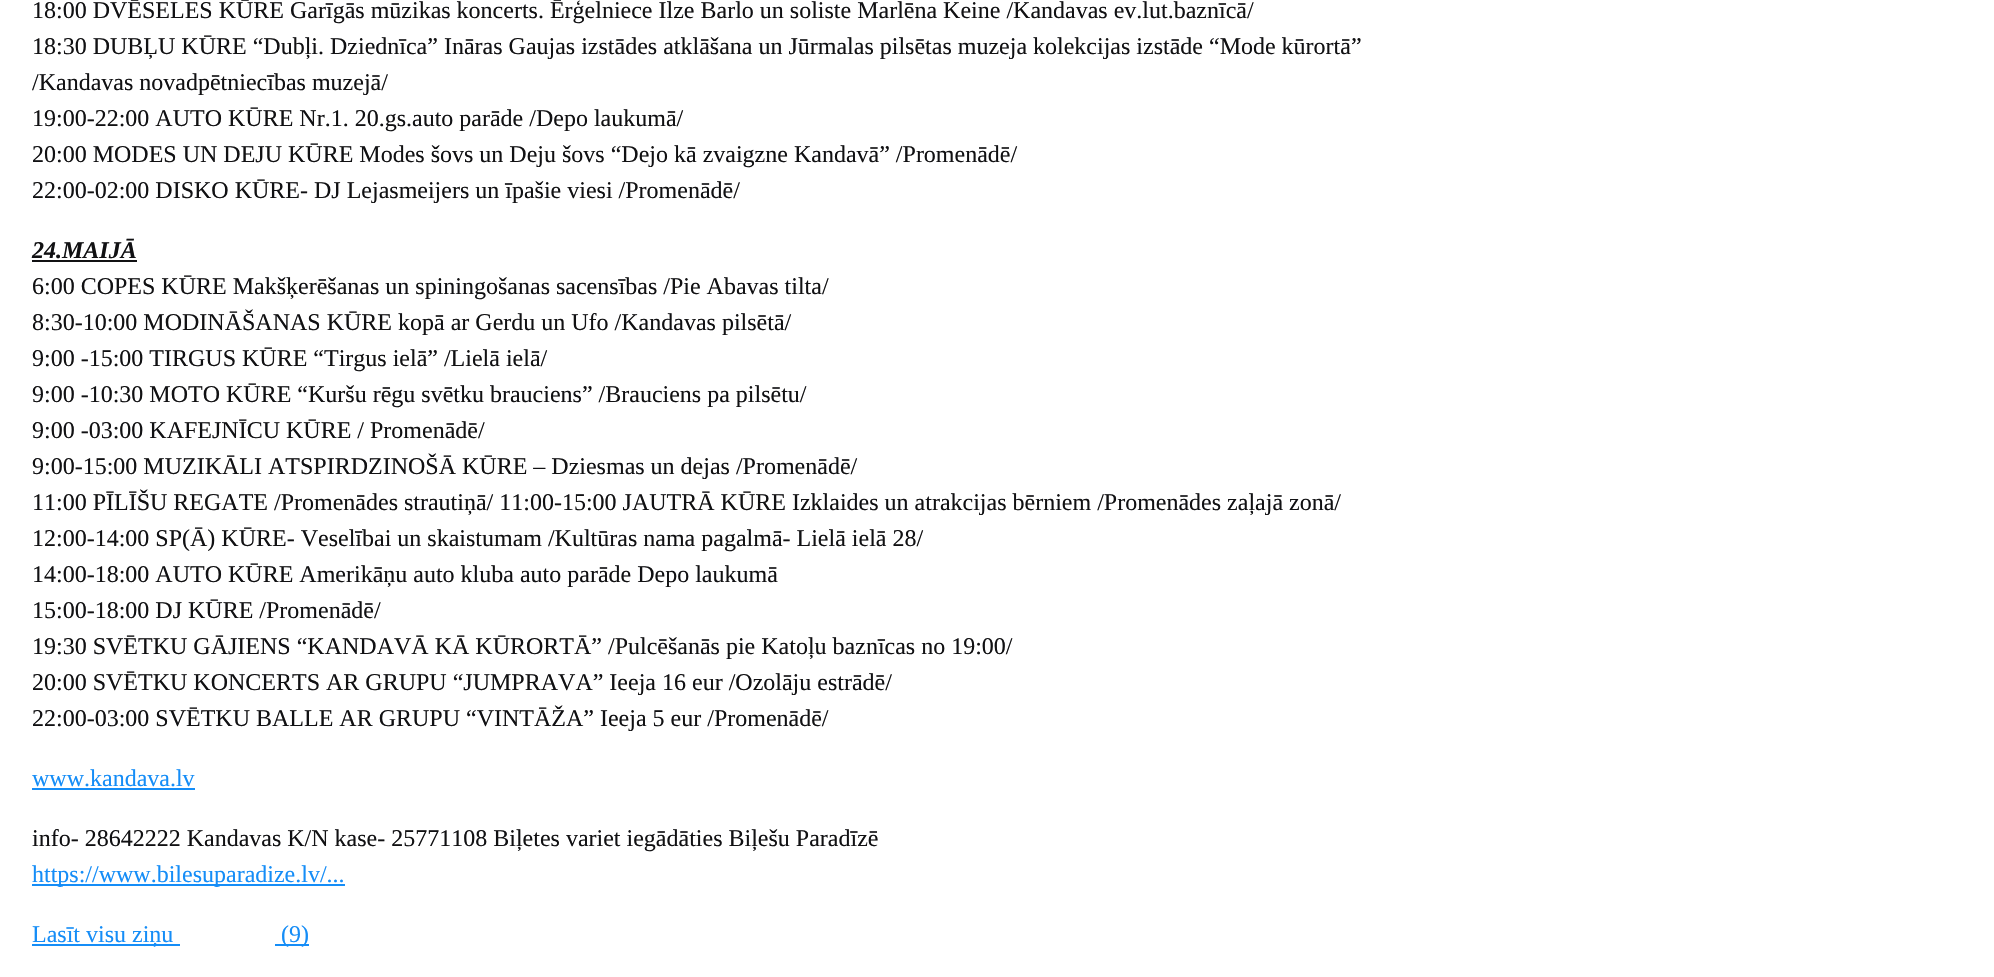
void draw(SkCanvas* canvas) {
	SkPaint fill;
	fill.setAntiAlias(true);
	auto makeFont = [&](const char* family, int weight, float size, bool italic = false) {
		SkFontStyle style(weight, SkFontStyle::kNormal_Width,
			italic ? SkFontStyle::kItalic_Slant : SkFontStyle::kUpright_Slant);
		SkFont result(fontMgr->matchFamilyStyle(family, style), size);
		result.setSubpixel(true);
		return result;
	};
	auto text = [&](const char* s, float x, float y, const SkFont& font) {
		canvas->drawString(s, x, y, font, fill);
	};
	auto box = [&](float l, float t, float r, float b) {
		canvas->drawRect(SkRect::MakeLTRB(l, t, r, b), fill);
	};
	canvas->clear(0xFFFFFFFF);
	fill.setColor(0xFF111113);
	box(32, 260, 137, 262);
	fill.setColor(0xFF158DF7);
	box(32, 788, 195, 790);
	box(32, 884, 345, 886);
	box(32, 944, 180, 946);
	box(275, 944, 309, 946);
	auto font1 = makeFont("Liberation Serif", 400, 24);
	fill.setColor(0xFF111113);
	text("18:00 DVĒSELES KŪRE Garīgās mūzikas koncerts. Ērģelniece Ilze Barlo un soliste Marlēna Keine /Kandavas ev.lut.baznīcā/", 32, 18, font1);
	text("18:30 DUBĻU KŪRE “Dubļi. Dziednīca” Ināras Gaujas izstādes atklāšana un Jūrmalas pilsētas muzeja kolekcijas izstāde “Mode kūrortā”", 32, 54, font1);
	text("/Kandavas novadpētniecības muzejā/", 32, 90, font1);
	text("19:00-22:00 AUTO KŪRE Nr.1. 20.gs.auto parāde /Depo laukumā/", 32, 126, font1);
	text("20:00 MODES UN DEJU KŪRE Modes šovs un Deju šovs “Dejo kā zvaigzne Kandavā” /Promenādē/", 32, 162, font1);
	text("22:00-02:00 DISKO KŪRE- DJ Lejasmeijers un īpašie viesi /Promenādē/", 32, 198, font1);
	auto font2 = makeFont("Liberation Serif", 700, 24, true);
	text("24.MAIJĀ", 32, 258, font2);
	text("6:00 COPES KŪRE Makšķerēšanas un spiningošanas sacensības /Pie Abavas tilta/", 32, 294, font1);
	text("8:30-10:00 MODINĀŠANAS KŪRE kopā ar Gerdu un Ufo /Kandavas pilsētā/", 32, 330, font1);
	text("9:00 -15:00 TIRGUS KŪRE “Tirgus ielā” /Lielā ielā/", 32, 366, font1);
	text("9:00 -10:30 MOTO KŪRE “Kuršu rēgu svētku brauciens” /Brauciens pa pilsētu/", 32, 402, font1);
	text("9:00 -03:00 KAFEJNĪCU KŪRE / Promenādē/", 32, 438, font1);
	text("9:00-15:00 MUZIKĀLI ATSPIRDZINOŠĀ KŪRE – Dziesmas un dejas /Promenādē/", 32, 474, font1);
	text("11:00 PĪLĪŠU REGATE /Promenādes strautiņā/ 11:00-15:00 JAUTRĀ KŪRE Izklaides un atrakcijas bērniem /Promenādes zaļajā zonā/", 32, 510, font1);
	text("12:00-14:00 SP(Ā) KŪRE- Veselībai un skaistumam /Kultūras nama pagalmā- Lielā ielā 28/", 32, 546, font1);
	text("14:00-18:00 AUTO KŪRE Amerikāņu auto kluba auto parāde Depo laukumā", 32, 582, font1);
	text("15:00-18:00 DJ KŪRE /Promenādē/", 32, 618, font1);
	text("19:30 SVĒTKU GĀJIENS “KANDAVĀ KĀ KŪRORTĀ” /Pulcēšanās pie Katoļu baznīcas no 19:00/", 32, 654, font1);
	text("20:00 SVĒTKU KONCERTS AR GRUPU “JUMPRAVA” Ieeja 16 eur /Ozolāju estrādē/", 32, 690, font1);
	text("22:00-03:00 SVĒTKU BALLE AR GRUPU “VINTĀŽA” Ieeja 5 eur /Promenādē/", 32, 726, font1);
	fill.setColor(0xFF158DF7);
	text("www.kandava.lv", 32, 786, font1);
	fill.setColor(0xFF111113);
	text("info- 28642222 Kandavas K/N kase- 25771108 Biļetes variet iegādāties Biļešu Paradīzē", 32, 846, font1);
	fill.setColor(0xFF158DF7);
	text("https://www.bilesuparadize.lv/...", 32, 882, font1);
	text("Lasīt visu ziņu", 32, 942, font1);
	text("(9)", 281, 942, font1);
}
